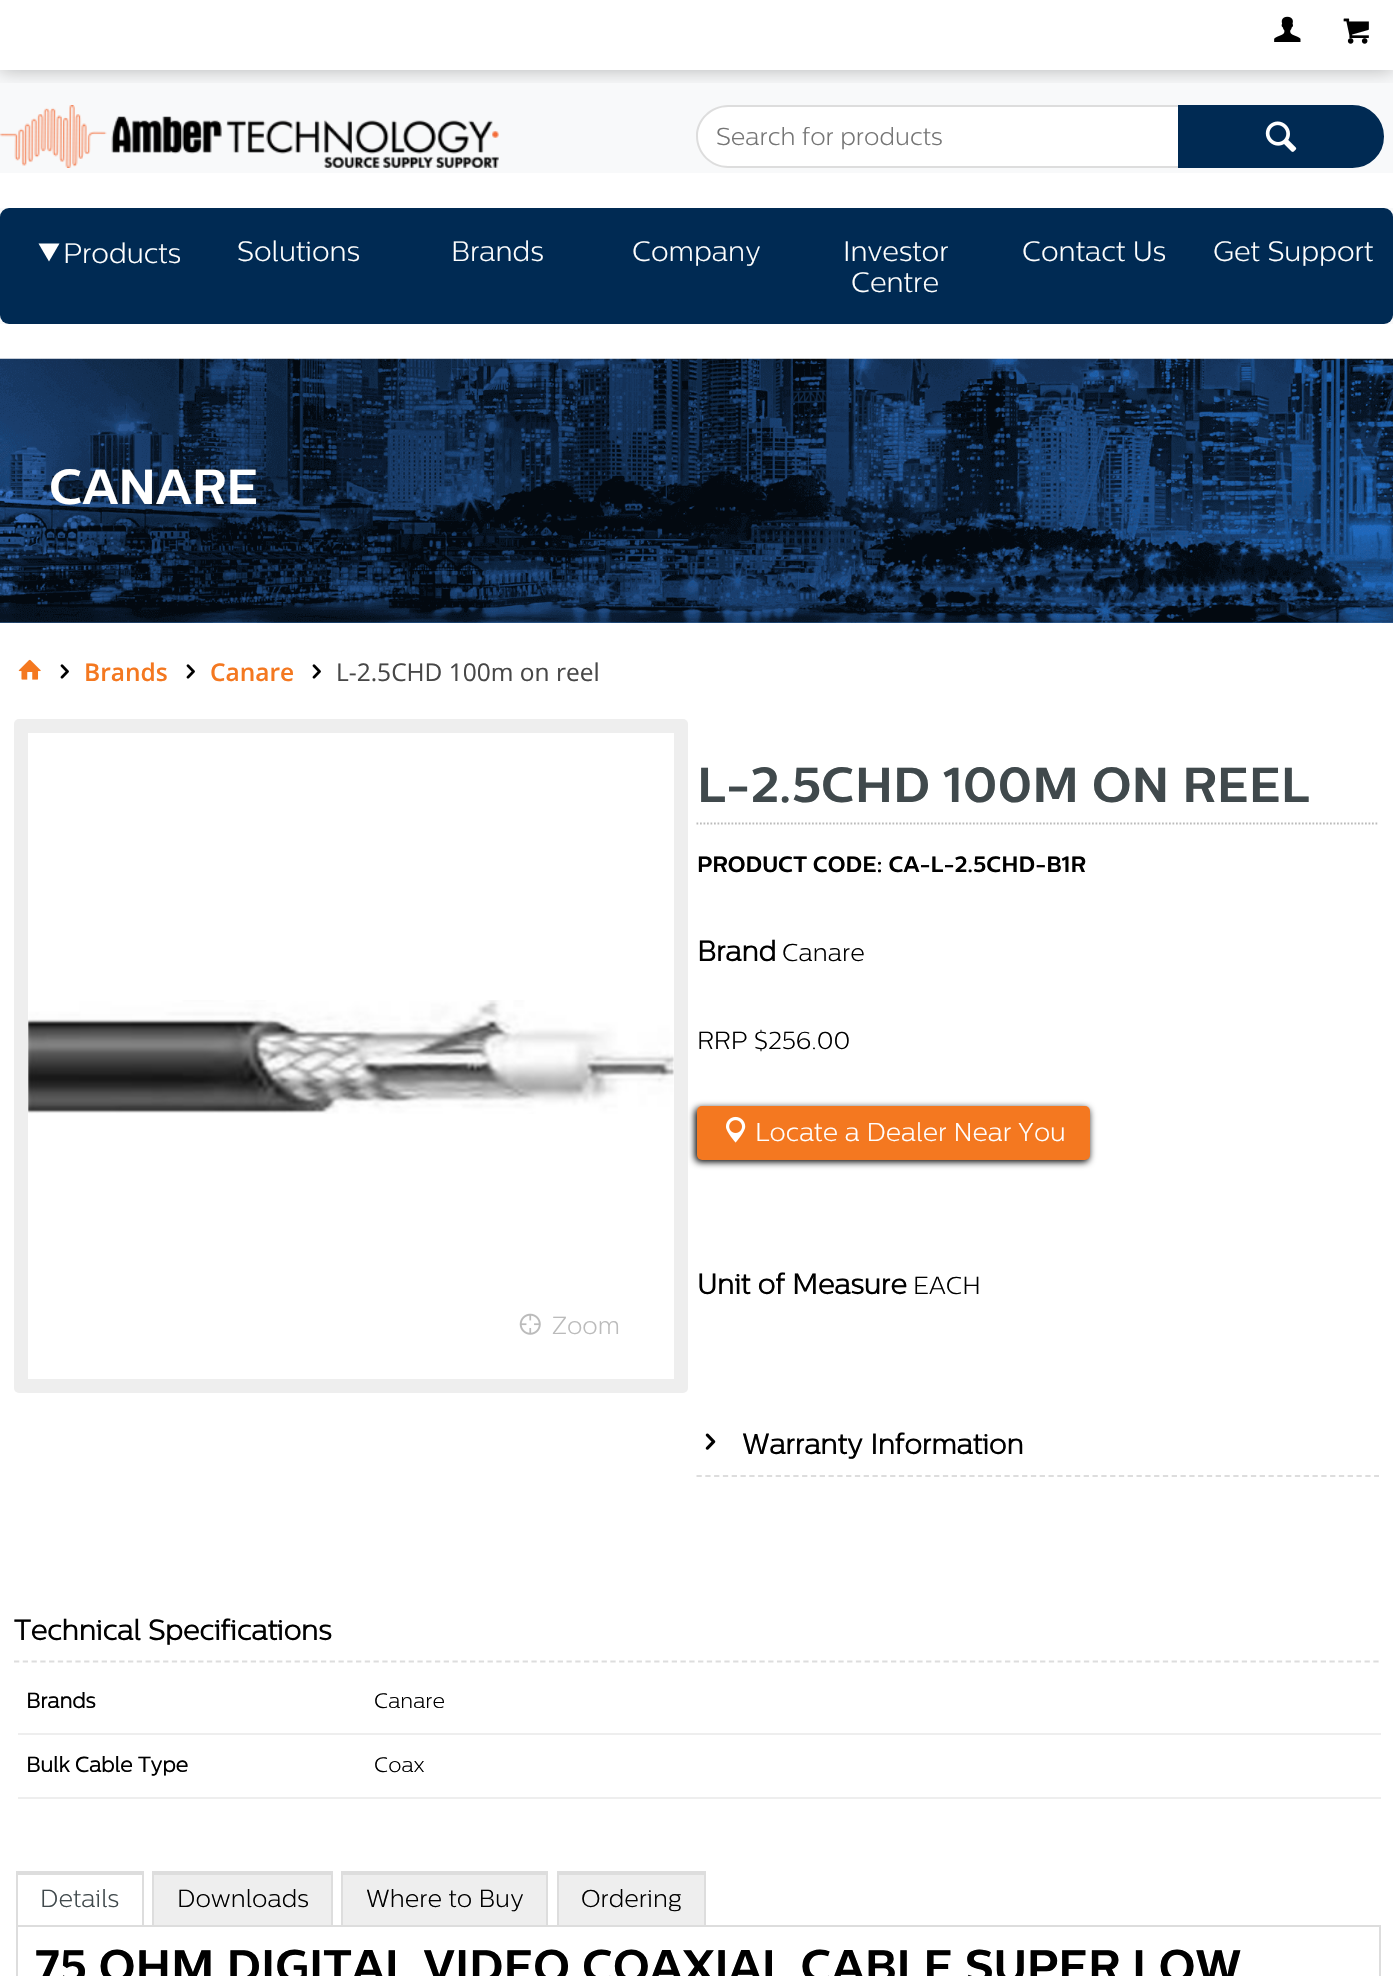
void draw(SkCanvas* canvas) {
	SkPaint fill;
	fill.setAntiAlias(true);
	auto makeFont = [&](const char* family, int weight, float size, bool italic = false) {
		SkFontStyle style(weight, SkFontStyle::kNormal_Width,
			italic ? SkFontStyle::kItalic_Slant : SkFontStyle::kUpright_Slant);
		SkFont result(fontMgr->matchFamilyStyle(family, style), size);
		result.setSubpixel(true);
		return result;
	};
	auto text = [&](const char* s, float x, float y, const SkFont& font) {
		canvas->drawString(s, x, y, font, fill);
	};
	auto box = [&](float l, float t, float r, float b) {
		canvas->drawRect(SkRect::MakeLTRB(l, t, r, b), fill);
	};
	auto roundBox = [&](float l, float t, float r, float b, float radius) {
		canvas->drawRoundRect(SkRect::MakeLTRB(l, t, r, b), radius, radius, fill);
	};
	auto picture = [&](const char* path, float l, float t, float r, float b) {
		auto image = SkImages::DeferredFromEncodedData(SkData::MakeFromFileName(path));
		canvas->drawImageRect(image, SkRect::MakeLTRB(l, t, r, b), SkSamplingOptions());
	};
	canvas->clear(0xFFFFFFFF);
	fill.setColor(0xFFF8F9FA);
	box(0, 70, 1393, 173);
	canvas->save();
	canvas->clipRect(SkRect::MakeLTRB(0, 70, 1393, 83));
	fill.setColor(0x47000000);
	fill.setMaskFilter(SkMaskFilter::MakeBlur(kNormal_SkBlurStyle, 9));
	canvas->drawRect(SkRect::MakeLTRB(0, 0, 1393, 70), fill);
	fill.setMaskFilter(nullptr);
	canvas->restore();
	picture("image0.png", 1274, 16, 1301, 42);
	picture("image1.png", 1343, 18, 1369, 44);
	picture("image2.png", 0, 105, 499, 168);
	fill.setColor(0xFFFFFFFF);
	canvas->drawPath(SkPathBuilder().moveTo(728.5f, 105).lineTo(1178, 105).lineTo(1178, 168).lineTo(728.5f, 168).cubicTo(711, 168, 697, 154, 697, 136.5f).cubicTo(697, 119, 711, 105, 728.5f, 105).close().detach(), fill);
	fill.setColor(0xFFDDDDDD);
	canvas->drawPath(SkPathBuilder(SkPathFillType::kEvenOdd).moveTo(728, 105).lineTo(1178, 105).lineTo(1178, 168).lineTo(728, 168).cubicTo(711, 168, 696, 154, 696, 136).cubicTo(696, 119, 711, 105, 728, 105).close().moveTo(728, 107).lineTo(1178, 107).lineTo(1178, 166).lineTo(728, 166).cubicTo(712, 166, 698, 153, 698, 136).cubicTo(698, 120, 712, 107, 728, 107).close().detach(), fill);
	fill.setColor(0xFF002A53);
	canvas->drawPath(SkPathBuilder().moveTo(1179, 106).lineTo(1352.5f, 106).cubicTo(1369.5f, 106, 1383, 119.5f, 1383, 136.5f).cubicTo(1383, 153.5f, 1369.5f, 167, 1352.5f, 167).lineTo(1179, 167).close().detach(), fill);
	fill.setStyle(SkPaint::kStroke_Style);
	fill.setStrokeWidth(2);
	canvas->drawPath(SkPathBuilder().moveTo(1179, 106).lineTo(1352.5f, 106).cubicTo(1369.5f, 106, 1383, 119.5f, 1383, 136.5f).cubicTo(1383, 153.5f, 1369.5f, 167, 1352.5f, 167).lineTo(1179, 167).close().detach(), fill);
	picture("image3.png", 1265, 121, 1297, 152);
	fill.setStyle(SkPaint::kFill_Style);
	fill.setColor(0xFFF8F9FA);
	box(0, 208, 1393, 324);
	fill.setColor(0xFF002A53);
	roundBox(0, 208, 1393, 324, 9);
	fill.setColor(0xFFFFFFFF);
	canvas->drawPath(SkPathBuilder().moveTo(59.5f, 243.5f).lineTo(38.5f, 243.5f).lineTo(49, 261.5f).close().detach(), fill);
	fill.setColor(0xFF16508E);
	box(0, 622, 1393, 623);
	picture("image4.png", 0, 358, 1393, 623);
	picture("image5.png", 18, 659, 41, 680);
	picture("image6.png", 60, 664, 69, 679);
	picture("image6.png", 186, 664, 195, 679);
	picture("image6.png", 312, 664, 321, 679);
	fill.setColor(0xFF000000);
	fill.setMaskFilter(SkMaskFilter::MakeBlur(kNormal_SkBlurStyle, 3.5f));
	canvas->drawRoundRect(SkRect::MakeLTRB(695, 1108, 1089, 1162), 5, 5, fill);
	fill.setMaskFilter(nullptr);
	fill.setColor(0xFFEEEEEE);
	roundBox(14, 719, 688, 1393, 5);
	fill.setColor(0xFFFFFFFF);
	box(28, 733, 674, 1379);
	picture("image7.png", 28, 1000, 674, 1114);
	picture("image8.png", 519, 1313, 541, 1335);
	fill.setStyle(SkPaint::kStroke_Style);
	fill.setStrokeWidth(1.8f);
	fill.setColor(0xFFBBBBBB);
	fill.setPathEffect(SkDashPathEffect::Make({{1.75f, 1.75f}}, 0));
	canvas->drawPath(SkPathBuilder().moveTo(696.5f, 823.5f).lineTo(1379, 823.5f).detach(), fill);
	fill.setPathEffect(nullptr);
	fill.setStyle(SkPaint::kFill_Style);
	fill.setColor(0xFFF47820);
	roundBox(697, 1106, 1090, 1160, 5);
	picture("image9.png", 726, 1116, 746, 1143);
	fill.setStyle(SkPaint::kStroke_Style);
	fill.setColor(0xFFDDDDDD);
	fill.setPathEffect(SkDashPathEffect::Make({{5.25f, 3.55f}}, 0));
	canvas->drawPath(SkPathBuilder().moveTo(696.5f, 1476).lineTo(1379, 1476).detach(), fill);
	fill.setPathEffect(nullptr);
	picture("image10.png", 705, 1433, 716, 1450);
	fill.setPathEffect(SkDashPathEffect::Make({{5.25f, 3.52f}}, 0));
	canvas->drawPath(SkPathBuilder().moveTo(14, 1661.5f).lineTo(1379, 1661.5f).detach(), fill);
	fill.setPathEffect(nullptr);
	fill.setStyle(SkPaint::kFill_Style);
	fill.setColor(0xFFEEEEEE);
	box(14, 1733, 1381, 1735);
	box(14, 1797, 1381, 1799);
	fill.setColor(0xFFFFFFFF);
	box(14, 1733, 18, 1799);
	fill.setColor(0xFFDDDDDD);
	box(16, 1871, 144, 1873);
	box(142, 1871, 144, 1925);
	box(16, 1871, 18, 1925);
	box(18, 1873, 142, 1875);
	fill.setColor(0xFFEEEEEE);
	box(154, 1875, 331, 1925);
	fill.setColor(0xFFDDDDDD);
	box(152, 1871, 333, 1873);
	box(331, 1871, 333, 1925);
	box(152, 1871, 154, 1925);
	box(154, 1873, 331, 1875);
	fill.setColor(0xFFEEEEEE);
	box(343, 1875, 546, 1925);
	fill.setColor(0xFFDDDDDD);
	box(341, 1871, 548, 1873);
	box(546, 1871, 548, 1925);
	box(341, 1871, 343, 1925);
	box(343, 1873, 546, 1875);
	fill.setColor(0xFFEEEEEE);
	box(559, 1875, 704, 1925);
	fill.setColor(0xFFDDDDDD);
	box(557, 1871, 705, 1873);
	box(704, 1871, 706, 1925);
	box(557, 1871, 559, 1925);
	box(558, 1873, 704, 1875);
	box(16, 1925, 1381, 1927);
	box(1379, 1925, 1381, 1976);
	box(16, 1925, 18, 1976);
	auto font1 = makeFont("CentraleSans", 300, 24.5f);
	fill.setColor(0xFF757575);
	text("Search for products", 716, 145, font1);
	auto font2 = makeFont("CentraleSans", 300, 28);
	fill.setColor(0xFFFFFFFF);
	text("Products", 63, 263, font2);
	text("Solutions", 237, 261, font2);
	text("Brands", 451, 261, font2);
	text("Company", 632, 261, font2);
	text("Investor", 843, 261, font2);
	text("Centre", 851, 292, font2);
	text("Contact Us", 1022, 261, font2);
	text("Get Support", 1213, 261, font2);
	auto font3 = makeFont("CentraleSans", 700, 49);
	text("CANARE", 49, 504, font3);
	auto font4 = makeFont("Open Sans", 600, 24.5f);
	fill.setColor(0xFFF47820);
	text("Brands", 84, 681, font4);
	text("Canare", 210, 681, font4);
	auto font5 = makeFont("Open Sans", 400, 24.5f);
	fill.setColor(0xFF474747);
	text("L-2.5CHD 100m on reel", 336, 681, font5);
	fill.setColor(0xFFBBBBBB);
	text("Zoom", 552, 1334, font1);
	fill.setColor(0xFF40494C);
	text("L-2.5CHD 100M ON REEL", 697, 802, font3);
	auto font6 = makeFont("CentraleSans", 700, 22);
	fill.setColor(0xFF000000);
	text("PRODUCT CODE: CA-L-2.5CHD-B1R", 697, 872, font6);
	auto font7 = makeFont("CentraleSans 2", 700, 28);
	text("Brand", 697, 961, font7);
	text("Canare", 782, 961, font1);
	text("RRP $256.00", 697, 1049, font1);
	auto font8 = makeFont("CentraleSans", 300, 25.75f);
	fill.setColor(0xFFFFFFFF);
	text("Locate a Dealer Near You", 755, 1141, font8);
	fill.setColor(0xFF000000);
	text("Unit of Measure", 697, 1294, font7);
	text("EACH", 913, 1294, font1);
	text("Warranty Information", 742, 1454, font7);
	text("Technical Specifications", 14, 1640, font7);
	auto font9 = makeFont("CentraleSans 2", 700, 21);
	text("Brands", 26, 1708, font9);
	auto font10 = makeFont("CentraleSans", 300, 21);
	text("Canare", 374, 1708, font10);
	text("Bulk Cable Type", 26, 1772, font9);
	text("Coax", 374, 1772, font10);
	fill.setColor(0xFF40494C);
	text("Details", 40, 1907, font1);
	fill.setColor(0xFF000000);
	text("Downloads", 177, 1907, font1);
	text("Where to Buy", 366, 1907, font1);
	text("Ordering", 581, 1907, font1);
	auto font11 = makeFont("CentraleSans", 700, 45.5f);
	text("75 OHM DIGITAL VIDEO COAXIAL CABLE SUPER LOW", 35, 1982, font11);
}
